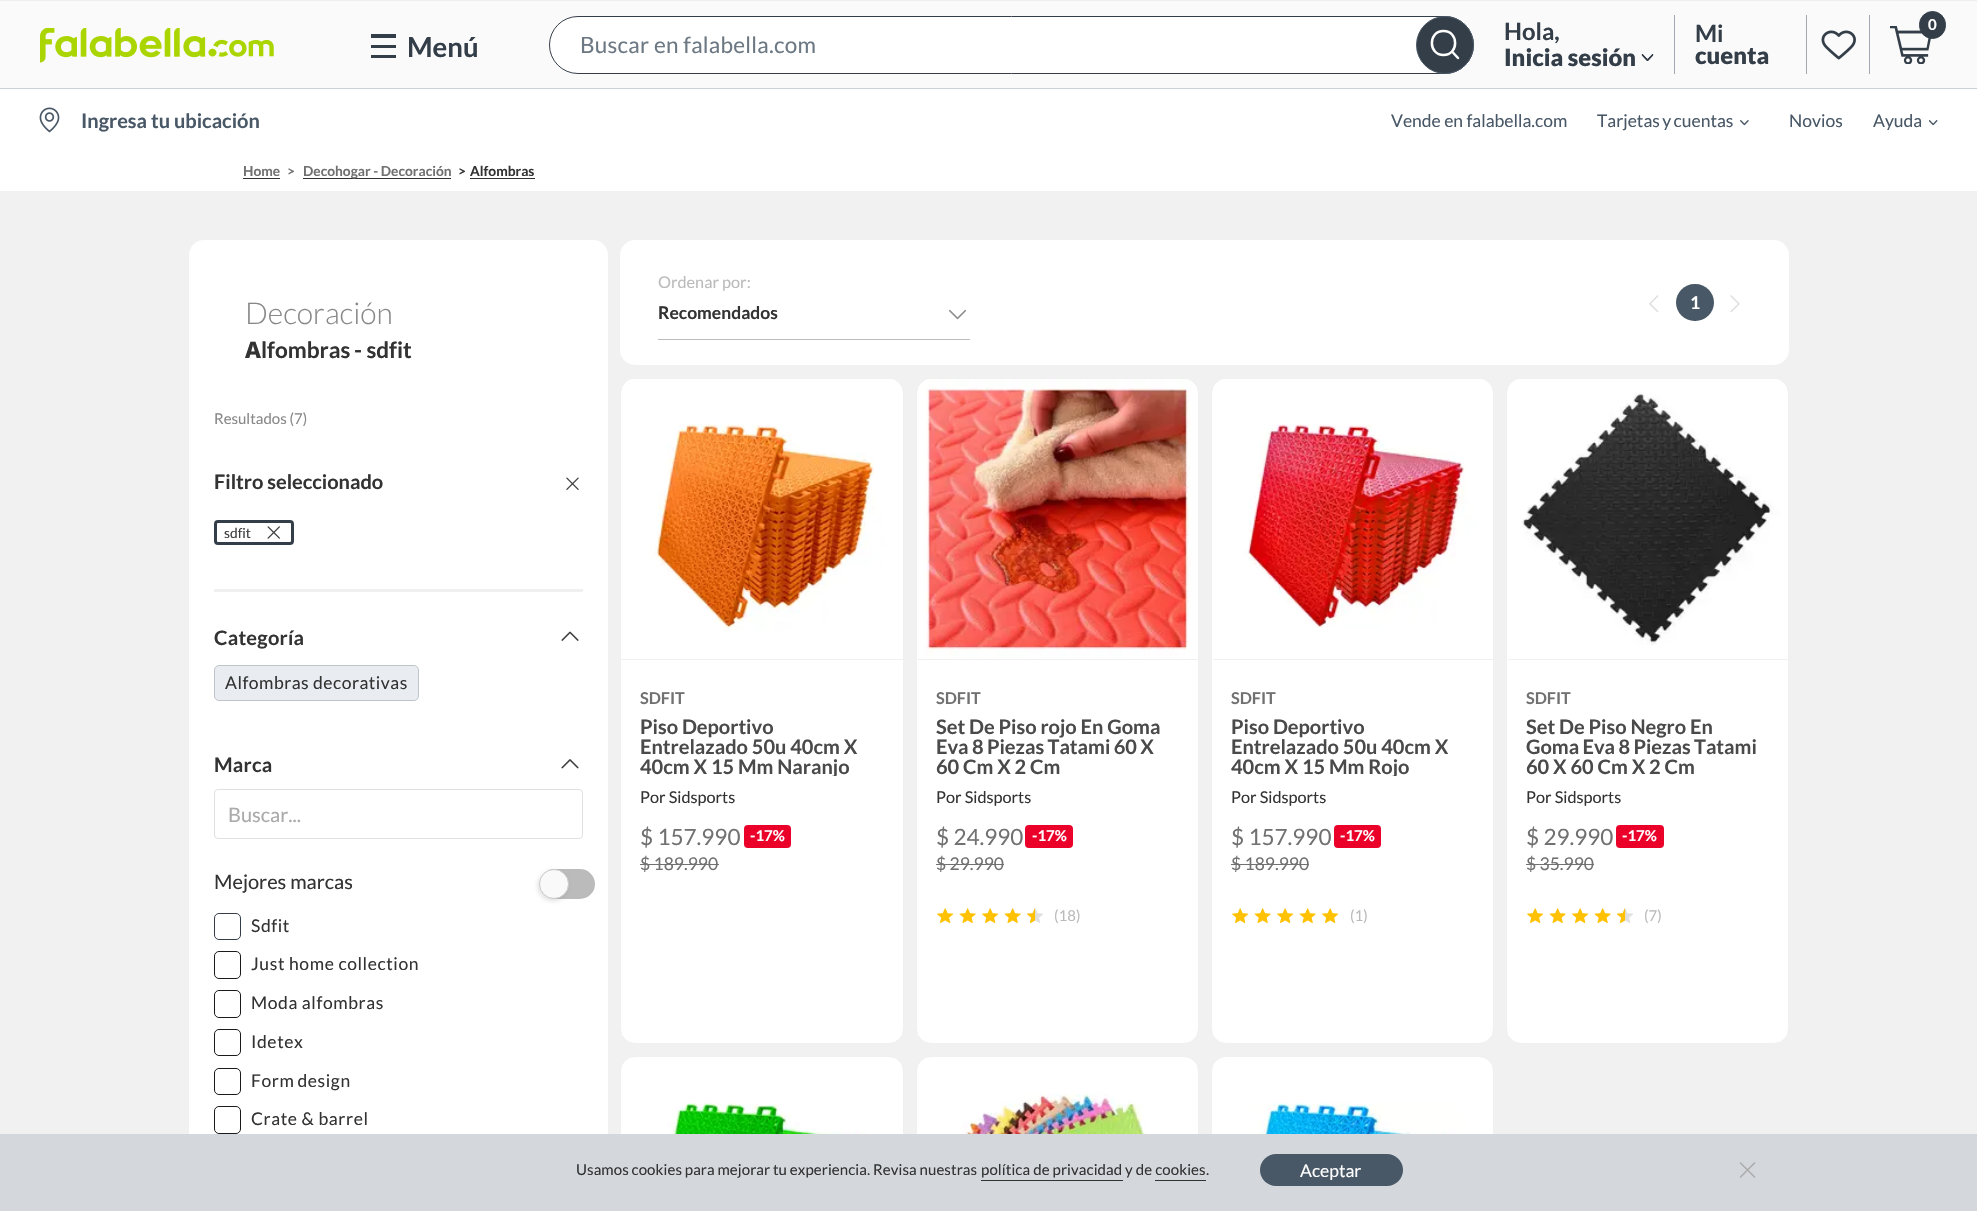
void draw(SkCanvas* canvas) {
	SkPaint fill;
	fill.setAntiAlias(true);
	auto makeFont = [&](const char* family, int weight, float size, bool italic = false) {
		SkFontStyle style(weight, SkFontStyle::kNormal_Width,
			italic ? SkFontStyle::kItalic_Slant : SkFontStyle::kUpright_Slant);
		SkFont result(fontMgr->matchFamilyStyle(family, style), size);
		result.setSubpixel(true);
		return result;
	};
	auto text = [&](const char* s, float x, float y, const SkFont& font) {
		canvas->drawString(s, x, y, font, fill);
	};
	auto spacedText = [&](const char* s, float x, float y, const SkFont& font, const SkPaint& ink, float letter, float word) {
		std::vector<SkGlyphID> glyphs(font.countText(s, strlen(s), SkTextEncoding::kUTF8));
		std::vector<float> xs(glyphs.size());
		font.textToGlyphs(s, strlen(s), SkTextEncoding::kUTF8, glyphs);
		font.getXPos(glyphs, xs, x);
		float extra = 0;
		for (size_t i = 0; i < glyphs.size(); i++) {
			xs[i] += extra;
			extra += letter + word * (glyphs[i] == font.unicharToGlyph(' '));
		}
		canvas->drawTextBlob(SkTextBlob::MakeFromPosHGlyphs(glyphs, xs, y, font), 0, 0, ink);
	};
	auto box = [&](float l, float t, float r, float b) {
		canvas->drawRect(SkRect::MakeLTRB(l, t, r, b), fill);
	};
	auto roundBox = [&](float l, float t, float r, float b, float radius) {
		canvas->drawRoundRect(SkRect::MakeLTRB(l, t, r, b), radius, radius, fill);
	};
	auto picture = [&](const char* path, float l, float t, float r, float b) {
		auto image = SkImages::DeferredFromEncodedData(SkData::MakeFromFileName(path));
		canvas->drawImageRect(image, SkRect::MakeLTRB(l, t, r, b), SkSamplingOptions());
	};
	canvas->clear(0xFFFFFFFF);
	fill.setColor(0xFFFAFAFA);
	box(0, 1, 1977, 88);
	fill.setColor(0xFFEEEEEE);
	box(0, 0, 1977, 1);
	picture("image0.png", 40, 28, 274, 63);
	fill.setColor(0xFF343E49);
	box(371, 45, 396, 48);
	box(371, 34, 396, 38);
	box(371, 55, 396, 58);
	fill.setColor(0xFFFFFFFF);
	canvas->drawRoundRect(SkRect::MakeLTRB(549.5f, 16.5f, 1473.5f, 73.5f), 28.5f, 28.5f, fill);
	fill.setStyle(SkPaint::kStroke_Style);
	fill.setStrokeWidth(1);
	fill.setColor(0xFF343E49);
	canvas->drawRoundRect(SkRect::MakeLTRB(549.5f, 16.5f, 1473.5f, 73.5f), 28.5f, 28.5f, fill);
	fill.setStyle(SkPaint::kFill_Style);
	canvas->drawCircle(1445, 45, 28.5f, fill);
	fill.setStyle(SkPaint::kStroke_Style);
	fill.setColor(0xFF495867);
	canvas->drawCircle(1445, 45, 28.5f, fill);
	fill.setStrokeWidth(2.5f);
	fill.setStrokeCap(SkPaint::kRound_Cap);
	fill.setStrokeJoin(SkPaint::kRound_Join);
	fill.setColor(0xFFFFFFFF);
	canvas->drawPath(SkPathBuilder().moveTo(1443.5f, 55).cubicTo(1459, 55, 1459, 31, 1443.5f, 31).cubicTo(1428, 31, 1428, 55, 1443.5f, 55).close().moveTo(1458, 58).lineTo(1452, 51.5f).detach(), fill);
	fill.setStyle(SkPaint::kFill_Style);
	fill.setColor(0xFFA2A9B1);
	box(1674, 15, 1675, 74);
	picture("image1.png", 1641, 54, 1654, 61);
	box(1806, 15, 1807, 74);
	box(1869, 15, 1870, 74);
	picture("image2.png", 1821, 30, 1856, 60);
	picture("image3.png", 1890, 26, 1931, 64);
	fill.setColor(0xFF343E49);
	canvas->drawRoundRect(SkRect::MakeLTRB(1919.5f, 11.5f, 1945.5f, 38.5f), 13, 13, fill);
	fill.setStyle(SkPaint::kStroke_Style);
	fill.setStrokeWidth(1);
	fill.setStrokeCap(SkPaint::kButt_Cap);
	fill.setStrokeJoin(SkPaint::kMiter_Join);
	canvas->drawRoundRect(SkRect::MakeLTRB(1919.5f, 11.5f, 1945.5f, 38.5f), 13, 13, fill);
	fill.setStyle(SkPaint::kFill_Style);
	fill.setColor(0xFFCAD1D9);
	box(0, 88, 1977, 89);
	picture("image4.png", 39, 107, 60, 133);
	picture("image5.png", 1740, 120, 1749, 126);
	picture("image6.png", 1929, 120, 1938, 126);
	fill.setColor(0xFF333333);
	box(243, 178, 280, 179);
	box(303, 178, 451, 179);
	box(470, 178, 535, 179);
	fill.setColor(0xFFF1F1F1);
	box(0, 191, 1977, 1134);
	fill.setColor(0xFFFFFFFF);
	roundBox(189, 240, 608, 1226, 15);
	picture("image7.png", 566, 477, 579, 490);
	fill.setStyle(SkPaint::kStroke_Style);
	fill.setStrokeWidth(3);
	fill.setColor(0xFF343E49);
	canvas->drawRoundRect(SkRect::MakeLTRB(215.5f, 521.5f, 292.5f, 543.5f), 2.5f, 2.5f, fill);
	picture("image8.png", 267, 526, 280, 539);
	fill.setStyle(SkPaint::kFill_Style);
	fill.setColor(0xFFF0F0F0);
	box(214, 589, 583, 592);
	picture("image9.png", 561, 631, 579, 641);
	fill.setColor(0xFFE9EDF1);
	canvas->drawRoundRect(SkRect::MakeLTRB(214.5f, 665.5f, 418.5f, 700.5f), 4.5f, 4.5f, fill);
	fill.setStyle(SkPaint::kStroke_Style);
	fill.setStrokeWidth(1);
	fill.setColor(0xFFBFC4C9);
	canvas->drawRoundRect(SkRect::MakeLTRB(214.5f, 665.5f, 418.5f, 700.5f), 4.5f, 4.5f, fill);
	picture("image10.png", 561, 759, 579, 769);
	fill.setColor(0xFFE0E0E0);
	canvas->drawRoundRect(SkRect::MakeLTRB(214.5f, 789.5f, 582.5f, 838.5f), 3.5f, 3.5f, fill);
	fill.setStyle(SkPaint::kFill_Style);
	fill.setColor(0xFFBBBBBB);
	roundBox(540, 869, 595, 899, 15);
	fill.setColor(0x40817C7C);
	fill.setMaskFilter(SkMaskFilter::MakeBlur(kNormal_SkBlurStyle, 2.5f));
	canvas->drawRoundRect(SkRect::MakeLTRB(538, 871, 568, 901), 15, 15, fill);
	fill.setMaskFilter(nullptr);
	fill.setColor(0xFFF9F9F9);
	canvas->drawCircle(554, 884, 14.5f, fill);
	fill.setStyle(SkPaint::kStroke_Style);
	fill.setColor(0xFFCACACA);
	canvas->drawCircle(554, 884, 14.5f, fill);
	fill.setColor(0xFF343E49);
	canvas->drawRoundRect(SkRect::MakeLTRB(214.5f, 913.5f, 240.5f, 939.5f), 4.5f, 4.5f, fill);
	fill.setColor(0xFF1A1A1A);
	canvas->drawRoundRect(SkRect::MakeLTRB(214.5f, 951.5f, 240.5f, 978.5f), 4.5f, 4.5f, fill);
	canvas->drawRoundRect(SkRect::MakeLTRB(214.5f, 990.5f, 240.5f, 1017.5f), 4.5f, 4.5f, fill);
	canvas->drawRoundRect(SkRect::MakeLTRB(214.5f, 1029.5f, 240.5f, 1055.5f), 4.5f, 4.5f, fill);
	canvas->drawRoundRect(SkRect::MakeLTRB(214.5f, 1068.5f, 240.5f, 1094.5f), 4.5f, 4.5f, fill);
	canvas->drawRoundRect(SkRect::MakeLTRB(214.5f, 1106.5f, 240.5f, 1133.5f), 4.5f, 4.5f, fill);
	fill.setStyle(SkPaint::kFill_Style);
	fill.setColor(0xFFFFFFFF);
	roundBox(620, 240, 1789, 365, 15);
	fill.setColor(0xFFBBBBBB);
	box(658, 339, 970, 340);
	picture("image11.png", 949, 309, 966, 320);
	picture("image12.png", 1649, 295, 1659, 313);
	fill.setColor(0xFF495867);
	roundBox(1676, 284, 1714, 321, 18.5f);
	picture("image13.png", 1730, 295, 1740, 313);
	fill.setColor(0xFFFFFFFF);
	canvas->drawRoundRect(SkRect::MakeLTRB(620.5f, 378.5f, 903.5f, 1043.5f), 14.5f, 14.5f, fill);
	fill.setStyle(SkPaint::kStroke_Style);
	fill.setColor(0xFFF0F0F0);
	canvas->drawRoundRect(SkRect::MakeLTRB(620.5f, 378.5f, 903.5f, 1043.5f), 14.5f, 14.5f, fill);
	picture("image14.png", 625, 379, 896, 631);
	fill.setStyle(SkPaint::kFill_Style);
	box(621, 659, 903, 660);
	fill.setColor(0xFFEB0029);
	roundBox(744, 825, 791, 848, 4);
	fill.setColor(0xFF717171);
	box(640, 864, 719, 865);
	fill.setColor(0xFFFFFFFF);
	canvas->drawRoundRect(SkRect::MakeLTRB(916.5f, 378.5f, 1198.5f, 1043.5f), 14.5f, 14.5f, fill);
	fill.setStyle(SkPaint::kStroke_Style);
	fill.setColor(0xFFF0F0F0);
	canvas->drawRoundRect(SkRect::MakeLTRB(916.5f, 378.5f, 1198.5f, 1043.5f), 14.5f, 14.5f, fill);
	picture("image15.png", 924, 379, 1191, 658);
	fill.setStyle(SkPaint::kFill_Style);
	box(918, 659, 1198, 660);
	fill.setColor(0xFFEB0029);
	roundBox(1025, 825, 1073, 848, 4);
	fill.setColor(0xFF717171);
	box(936, 864, 1004, 865);
	picture("image16.png", 937, 908, 954, 924);
	picture("image17.png", 959, 908, 976, 924);
	picture("image16.png", 982, 908, 999, 924);
	picture("image17.png", 1004, 908, 1021, 924);
	picture("image18.png", 1027, 908, 1043, 923);
	picture("image19.png", 1027, 908, 1036, 924);
	fill.setColor(0xFFFFFFFF);
	canvas->drawRoundRect(SkRect::MakeLTRB(1211.5f, 378.5f, 1493.5f, 1043.5f), 14.5f, 14.5f, fill);
	fill.setStyle(SkPaint::kStroke_Style);
	fill.setColor(0xFFF0F0F0);
	canvas->drawRoundRect(SkRect::MakeLTRB(1211.5f, 378.5f, 1493.5f, 1043.5f), 14.5f, 14.5f, fill);
	picture("image20.png", 1219, 379, 1486, 628);
	fill.setStyle(SkPaint::kFill_Style);
	box(1213, 659, 1493, 660);
	fill.setColor(0xFFEB0029);
	roundBox(1334, 825, 1381, 848, 4);
	fill.setColor(0xFF717171);
	box(1231, 864, 1309, 865);
	picture("image16.png", 1232, 908, 1249, 924);
	picture("image17.png", 1254, 908, 1271, 924);
	picture("image16.png", 1277, 908, 1294, 924);
	picture("image17.png", 1299, 908, 1316, 924);
	picture("image16.png", 1322, 908, 1339, 924);
	fill.setColor(0xFFFFFFFF);
	canvas->drawRoundRect(SkRect::MakeLTRB(1506.5f, 378.5f, 1788.5f, 1043.5f), 14.5f, 14.5f, fill);
	fill.setStyle(SkPaint::kStroke_Style);
	fill.setColor(0xFFF0F0F0);
	canvas->drawRoundRect(SkRect::MakeLTRB(1506.5f, 378.5f, 1788.5f, 1043.5f), 14.5f, 14.5f, fill);
	picture("image21.png", 1514, 379, 1781, 645);
	fill.setStyle(SkPaint::kFill_Style);
	box(1508, 659, 1788, 660);
	fill.setColor(0xFFEB0029);
	roundBox(1616, 825, 1664, 848, 4);
	fill.setColor(0xFF717171);
	box(1526, 864, 1594, 865);
	picture("image16.png", 1527, 908, 1544, 924);
	picture("image17.png", 1549, 908, 1566, 924);
	picture("image16.png", 1572, 908, 1589, 924);
	picture("image17.png", 1594, 908, 1611, 924);
	picture("image18.png", 1617, 908, 1633, 923);
	picture("image19.png", 1617, 908, 1626, 924);
	fill.setColor(0xFFFFFFFF);
	canvas->drawRoundRect(SkRect::MakeLTRB(620.5f, 1056.5f, 903.5f, 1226.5f), 14.5f, 14.5f, fill);
	fill.setStyle(SkPaint::kStroke_Style);
	fill.setColor(0xFFF0F0F0);
	canvas->drawRoundRect(SkRect::MakeLTRB(620.5f, 1056.5f, 903.5f, 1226.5f), 14.5f, 14.5f, fill);
	picture("image22.png", 658, 1103, 876, 1134);
	fill.setStyle(SkPaint::kFill_Style);
	fill.setColor(0xFFFFFFFF);
	canvas->drawRoundRect(SkRect::MakeLTRB(916.5f, 1056.5f, 1198.5f, 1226.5f), 14.5f, 14.5f, fill);
	fill.setStyle(SkPaint::kStroke_Style);
	fill.setColor(0xFFF0F0F0);
	canvas->drawRoundRect(SkRect::MakeLTRB(916.5f, 1056.5f, 1198.5f, 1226.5f), 14.5f, 14.5f, fill);
	picture("image23.png", 937, 1092, 1174, 1134);
	fill.setStyle(SkPaint::kFill_Style);
	fill.setColor(0xFFFFFFFF);
	canvas->drawRoundRect(SkRect::MakeLTRB(1211.5f, 1056.5f, 1493.5f, 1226.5f), 14.5f, 14.5f, fill);
	fill.setStyle(SkPaint::kStroke_Style);
	fill.setColor(0xFFF0F0F0);
	canvas->drawRoundRect(SkRect::MakeLTRB(1211.5f, 1056.5f, 1493.5f, 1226.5f), 14.5f, 14.5f, fill);
	picture("image24.png", 1249, 1102, 1466, 1134);
	fill.setStyle(SkPaint::kFill_Style);
	fill.setColor(0xFFD4D8DD);
	box(0, 1134, 1977, 1211);
	fill.setColor(0xFF333333);
	box(981, 1180, 1123, 1181);
	box(1155, 1180, 1206, 1181);
	fill.setColor(0xFF495867);
	roundBox(1260, 1154, 1403, 1186, 16);
	picture("image25.png", 1739, 1162, 1756, 1178);
	auto font1 = makeFont("Lato", 700, 27.5f);
	fill.setColor(0xFF343E49);
	text("Menú", 407, 57, font1);
	auto font2 = makeFont("Lato", 400, 22.5f);
	fill.setColor(0xFF6C7883);
	spacedText("Buscar en falabella.com", 580, 53, font2, fill, 0.25f, 0);
	auto font3 = makeFont("Lato", 700, 23.75f);
	fill.setColor(0xFF343E49);
	text("Hola,", 1504, 40, font3);
	auto font4 = makeFont("Lato", 900, 23.75f);
	text("Inicia sesión", 1504, 66, font4);
	text("Mi", 1695, 42, font3);
	text("cuenta", 1695, 64, font4);
	auto font5 = makeFont("Lato", 700, 15);
	fill.setColor(0xFFFFFFFF);
	text("0", 1928, 30, font5);
	auto font6 = makeFont("Lato", 700, 20);
	fill.setColor(0xFF495867);
	text("Ingresa tu ubicación", 81, 128, font6);
	auto font7 = makeFont("Lato", 400, 17.5f);
	text("Vende en falabella.com", 1391, 127, font7);
	spacedText("Tarjetas y cuentas", 1597, 127, font7, fill, 0, -1);
	text("Novios", 1789, 127, font7);
	text("Ayuda", 1873, 127, font7);
	auto font8 = makeFont("Lato", 700, 13.75f);
	fill.setColor(0xFF717171);
	text("Home", 243, 176, font8);
	text(">", 287, 176, font8);
	text("Decohogar - Decoración", 303, 176, font8);
	fill.setColor(0xFF333333);
	text(">", 458, 176, font8);
	text("Alfombras", 470, 176, font8);
	auto font9 = makeFont("Lato", 300, 30);
	fill.setColor(0xFF888888);
	text("Decoración", 245, 324, font9);
	auto font10 = makeFont("Noto Sans", 800, 22.5f);
	fill.setColor(0xFF333333);
	text("A", 245, 358, font10);
	auto font11 = makeFont("Lato", 700, 22.5f);
	text("lfombras", 261, 358, font11);
	text("- sdfit", 354, 358, font11);
	auto font12 = makeFont("Lato", 400, 15);
	fill.setColor(0xFF888888);
	text("Resultados (7)", 214, 424, font12);
	fill.setColor(0xFF333333);
	text("Filtro seleccionado", 214, 489, font6);
	auto font13 = makeFont("Lato", 400, 13.75f);
	fill.setColor(0xFF3D3D3D);
	text("sdfit", 224, 538, font13);
	fill.setColor(0xFF333333);
	spacedText("Categoría", 214, 645, font6, fill, 0.25f, 0);
	spacedText("Alfombras decorativas", 225, 689, font7, fill, 0.5f, 0);
	spacedText("Marca", 214, 772, font6, fill, 0.25f, 0);
	auto font14 = makeFont("Lato", 400, 20);
	fill.setColor(0xFFAAAAAA);
	text("Buscar...", 228, 822, font14);
	fill.setColor(0xFF333333);
	text("Mejores marcas", 214, 889, font14);
	spacedText("Sdfit", 251, 932, font7, fill, 0.6f, 0);
	spacedText("Just home collection", 251, 970, font7, fill, 0.6f, 0);
	spacedText("Moda alfombras", 251, 1009, font7, fill, 0.6f, 0);
	spacedText("Idetex", 251, 1048, font7, fill, 0.6f, 0);
	spacedText("Form design", 251, 1087, font7, fill, 0.6f, -1);
	spacedText("Crate & barrel", 251, 1125, font7, fill, 0.6f, 0);
	auto font15 = makeFont("Lato", 400, 16.25f);
	fill.setColor(0xFFBBBBBB);
	text("Ordenar por:", 658, 288, font15);
	auto font16 = makeFont("Lato", 700, 17.5f);
	fill.setColor(0xFF333333);
	text("Recomendados", 658, 319, font16);
	fill.setColor(0xFFFFFFFF);
	text("1", 1690, 309, font16);
	auto font17 = makeFont("Lato", 700, 16.25f);
	fill.setColor(0xFF717171);
	text("SDFIT", 640, 704, font17);
	fill.setColor(0xFF4A4A4A);
	text("Piso Deportivo", 640, 734, font6);
	text("Entrelazado 50u 40cm X", 640, 754, font6);
	canvas->save();
	canvas->clipRect(SkRect::MakeLTRB(640, 716, 884, 776));
	text("40cm X 15 Mm Naranjo", 640, 774, font6);
	canvas->restore();
	fill.setColor(0xFF333333);
	text("Por Sidsports", 640, 803, font15);
	fill.setColor(0xFF717171);
	text("$ 157.990", 640, 845, font2);
	fill.setColor(0xFFFFFFFF);
	text("-17%", 750, 841, font5);
	fill.setColor(0xFF717171);
	text("$ 189.990", 640, 870, font7);
	text("SDFIT", 936, 704, font17);
	fill.setColor(0xFF4A4A4A);
	text("Set De Piso rojo En Goma", 936, 734, font6);
	spacedText("Eva 8 Piezas Tatami 60 X", 936, 754, font6, fill, 0, -0.5f);
	text("60 Cm X 2 Cm", 936, 774, font6);
	fill.setColor(0xFF333333);
	text("Por Sidsports", 936, 803, font15);
	fill.setColor(0xFF717171);
	text("$ 24.990", 936, 845, font2);
	fill.setColor(0xFFFFFFFF);
	text("-17%", 1032, 841, font5);
	fill.setColor(0xFF717171);
	text("$ 29.990", 936, 870, font7);
	fill.setColor(0xFFBBBBBB);
	text("(18)", 1054, 921, font12);
	fill.setColor(0xFF717171);
	text("SDFIT", 1231, 704, font17);
	fill.setColor(0xFF4A4A4A);
	text("Piso Deportivo", 1231, 734, font6);
	text("Entrelazado 50u 40cm X", 1231, 754, font6);
	canvas->save();
	canvas->clipRect(SkRect::MakeLTRB(1231, 716, 1474, 776));
	text("40cm X 15 Mm Rojo", 1231, 774, font6);
	canvas->restore();
	fill.setColor(0xFF333333);
	text("Por Sidsports", 1231, 803, font15);
	fill.setColor(0xFF717171);
	text("$ 157.990", 1231, 845, font2);
	fill.setColor(0xFFFFFFFF);
	text("-17%", 1340, 841, font5);
	fill.setColor(0xFF717171);
	text("$ 189.990", 1231, 870, font7);
	fill.setColor(0xFFBBBBBB);
	text("(1)", 1350, 921, font12);
	fill.setColor(0xFF717171);
	text("SDFIT", 1526, 704, font17);
	fill.setColor(0xFF4A4A4A);
	text("Set De Piso Negro En", 1526, 734, font6);
	spacedText("Goma Eva 8 Piezas Tatami", 1526, 754, font6, fill, 0, -0.5f);
	text("60 X 60 Cm X 2 Cm", 1526, 774, font6);
	fill.setColor(0xFF333333);
	text("Por Sidsports", 1526, 803, font15);
	fill.setColor(0xFF717171);
	text("$ 29.990", 1526, 845, font2);
	fill.setColor(0xFFFFFFFF);
	text("-17%", 1622, 841, font5);
	fill.setColor(0xFF717171);
	text("$ 35.990", 1526, 870, font7);
	fill.setColor(0xFFBBBBBB);
	text("(7)", 1644, 921, font12);
	fill.setColor(0xFF333333);
	spacedText("Usamos cookies para mejorar tu experiencia. Revisa nuestras", 576, 1175, font12, fill, 0.1f, -0.25f);
	spacedText("política de privacidad", 981, 1175, font12, fill, 0.1f, 0);
	spacedText("y de cookies", 1125, 1175, font12, fill, 0.1f, 0);
	spacedText(".", 1206, 1175, font12, fill, 0.1f, 0);
	fill.setColor(0xFFFFFFFF);
	text("Aceptar", 1300, 1177, font7);
}
